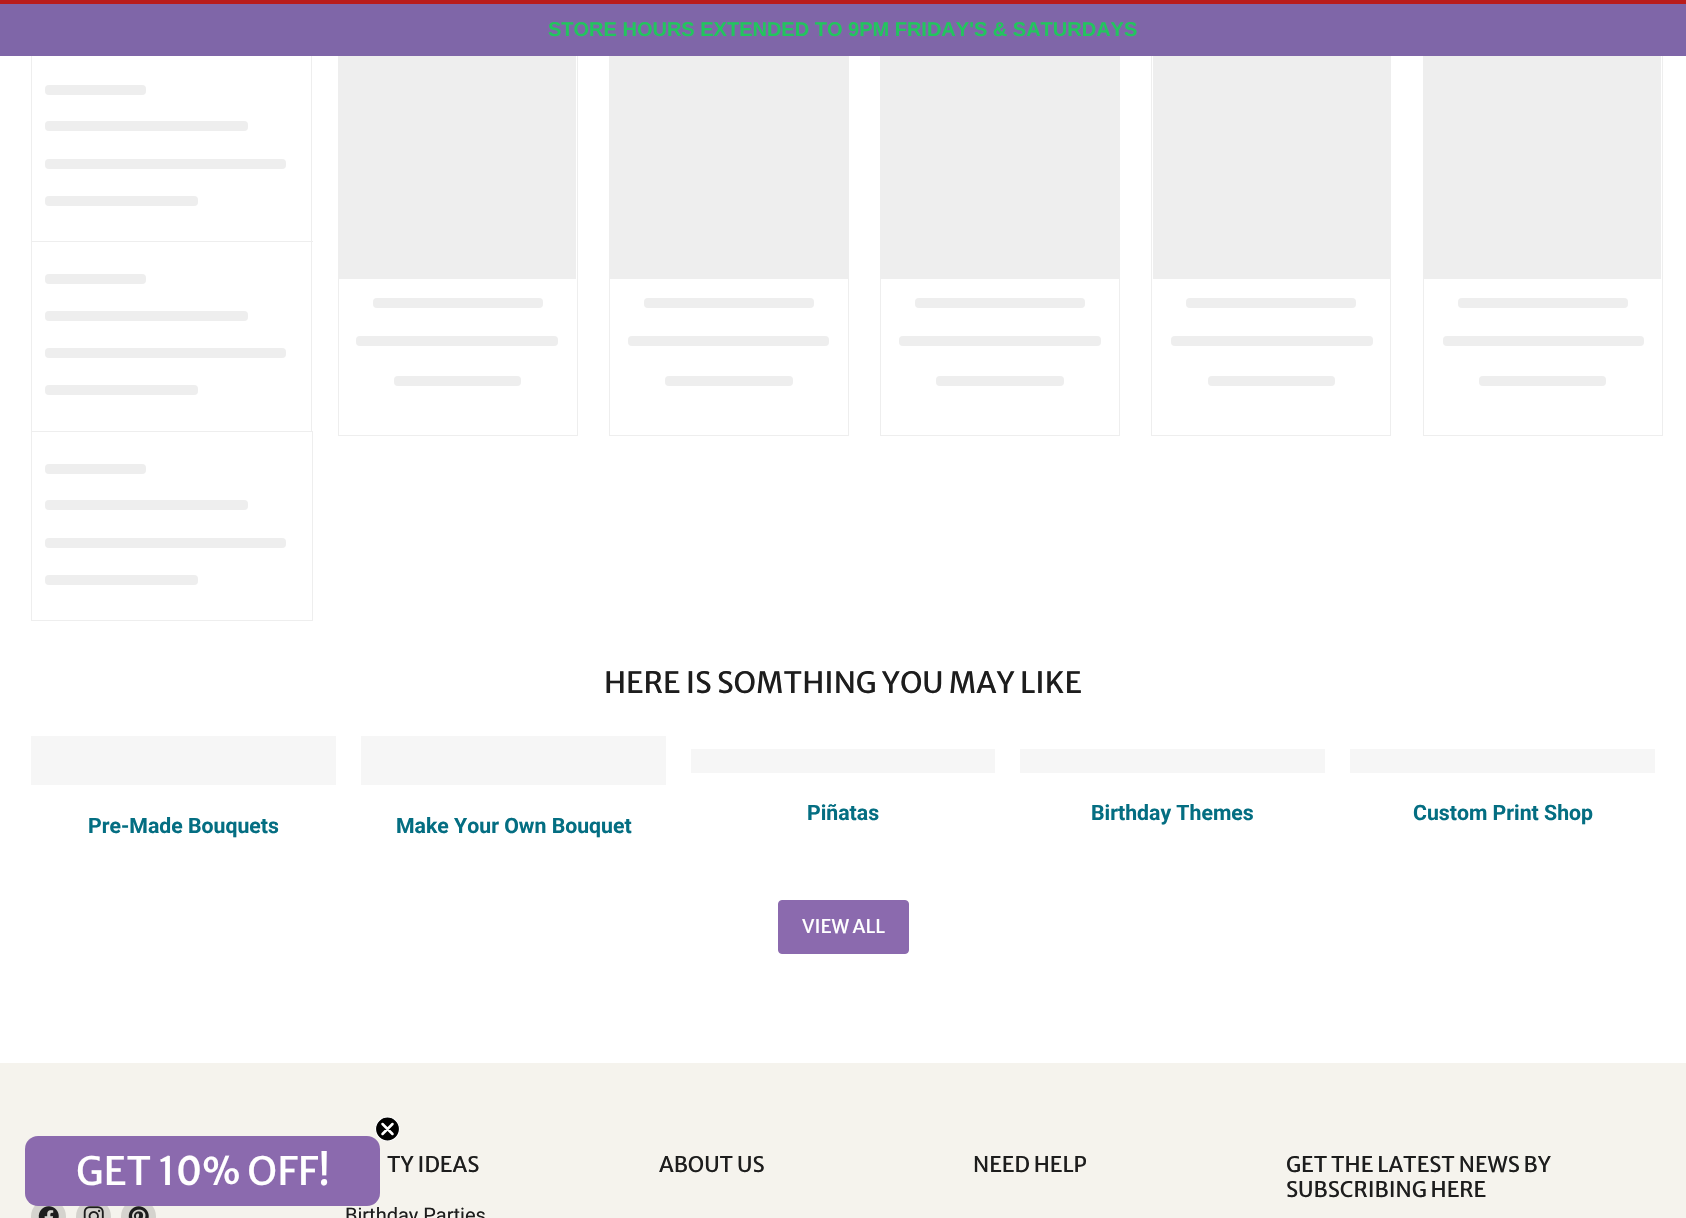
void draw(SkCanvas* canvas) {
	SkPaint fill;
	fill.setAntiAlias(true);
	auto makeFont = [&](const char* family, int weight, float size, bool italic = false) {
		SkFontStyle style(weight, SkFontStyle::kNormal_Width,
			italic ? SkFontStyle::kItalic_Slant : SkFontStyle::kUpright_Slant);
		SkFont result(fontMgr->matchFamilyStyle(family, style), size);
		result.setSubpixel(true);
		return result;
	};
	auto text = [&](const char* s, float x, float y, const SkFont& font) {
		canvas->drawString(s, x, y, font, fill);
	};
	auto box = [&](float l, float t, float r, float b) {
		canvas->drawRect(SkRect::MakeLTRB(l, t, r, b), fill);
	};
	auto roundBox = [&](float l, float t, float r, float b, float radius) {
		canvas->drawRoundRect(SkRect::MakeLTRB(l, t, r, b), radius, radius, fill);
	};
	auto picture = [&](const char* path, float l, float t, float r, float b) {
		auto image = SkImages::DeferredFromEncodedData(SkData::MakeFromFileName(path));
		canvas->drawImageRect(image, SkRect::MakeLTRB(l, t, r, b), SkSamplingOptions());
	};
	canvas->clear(0xFFFFFFFF);
	fill.setColor(0xFFEEEEEE);
	box(311, 53, 312, 241);
	box(31, 53, 32, 241);
	fill.setStyle(SkPaint::kStroke_Style);
	fill.setStrokeWidth(1);
	canvas->drawRect(SkRect::MakeLTRB(338.5f, 53.5f, 577.5f, 435.5f), fill);
	canvas->drawRect(SkRect::MakeLTRB(609.5f, 53.5f, 848.5f, 435.5f), fill);
	canvas->drawRect(SkRect::MakeLTRB(880.5f, 53.5f, 1119.5f, 435.5f), fill);
	canvas->drawRect(SkRect::MakeLTRB(1151.5f, 53.5f, 1390.5f, 435.5f), fill);
	canvas->drawRect(SkRect::MakeLTRB(1423.5f, 53.5f, 1662.5f, 435.5f), fill);
	fill.setStyle(SkPaint::kFill_Style);
	fill.setColor(0xFF7F66A8);
	box(0, 4, 1686, 56);
	fill.setColor(0xFFB91C1C);
	box(0, 0, 1686, 4);
	fill.setColor(0xFFEEEEEE);
	roundBox(45, 85, 146, 95, 4);
	roundBox(45, 121, 248, 131, 4);
	roundBox(45, 159, 286, 169, 4);
	roundBox(45, 196, 198, 206, 4);
	box(31, 241, 313, 242);
	box(311, 241, 312, 431);
	box(31, 241, 32, 431);
	roundBox(45, 274, 146, 284, 4);
	roundBox(45, 311, 248, 321, 4);
	roundBox(45, 348, 286, 358, 4);
	roundBox(45, 385, 198, 395, 4);
	fill.setStyle(SkPaint::kStroke_Style);
	canvas->drawRect(SkRect::MakeLTRB(31.5f, 431.5f, 312.5f, 620.5f), fill);
	fill.setStyle(SkPaint::kFill_Style);
	roundBox(45, 464, 146, 474, 4);
	roundBox(45, 500, 248, 510, 4);
	roundBox(45, 538, 286, 548, 4);
	roundBox(45, 575, 198, 585, 4);
	box(339, 56, 576, 279);
	roundBox(373, 298, 543, 308, 4);
	roundBox(356, 336, 558, 346, 4);
	roundBox(394, 376, 521, 386, 4);
	box(610, 56, 848, 279);
	roundBox(644, 298, 814, 308, 4);
	roundBox(628, 336, 829, 346, 4);
	roundBox(665, 376, 793, 386, 4);
	box(881, 56, 1119, 279);
	roundBox(915, 298, 1085, 308, 4);
	roundBox(899, 336, 1101, 346, 4);
	roundBox(936, 376, 1064, 386, 4);
	box(1153, 56, 1390, 279);
	roundBox(1186, 298, 1356, 308, 4);
	roundBox(1171, 336, 1373, 346, 4);
	roundBox(1208, 376, 1335, 386, 4);
	box(1424, 56, 1661, 279);
	roundBox(1458, 298, 1628, 308, 4);
	roundBox(1443, 336, 1644, 346, 4);
	roundBox(1479, 376, 1606, 386, 4);
	fill.setColor(0xFFF6F6F6);
	box(691, 749, 995, 773);
	box(1020, 749, 1325, 773);
	box(1350, 749, 1655, 773);
	box(31, 736, 336, 785);
	box(361, 736, 666, 785);
	fill.setColor(0xFF8B6AAE);
	canvas->drawRoundRect(SkRect::MakeLTRB(778.5f, 900.5f, 908.5f, 953.5f), 3.5f, 3.5f, fill);
	fill.setStyle(SkPaint::kStroke_Style);
	canvas->drawRoundRect(SkRect::MakeLTRB(778.5f, 900.5f, 908.5f, 953.5f), 3.5f, 3.5f, fill);
	fill.setStyle(SkPaint::kFill_Style);
	fill.setColor(0xFFF5F3ED);
	box(0, 1063, 1686, 1218);
	fill.setColor(0xFFD5D3CE);
	canvas->drawCircle(48.5f, 1216.5f, 17.5f, fill);
	canvas->drawCircle(93.5f, 1216.5f, 17.5f, fill);
	canvas->drawCircle(138.5f, 1216.5f, 17.5f, fill);
	fill.setColor(0xFF8B6AAE);
	roundBox(25, 1136, 380, 1206, 13);
	fill.setColor(0xFF000000);
	canvas->drawCircle(387.5f, 1129, 12, fill);
	canvas->save();
	canvas->clipRect(SkRect::MakeLTRB(375, 1116, 400, 1141));
	fill.setStyle(SkPaint::kStroke_Style);
	fill.setStrokeWidth(1.2f);
	fill.setColor(0xFFFFFFFF);
	canvas->drawCircle(387.5f, 1129, 12, fill);
	canvas->restore();
	fill.setStrokeWidth(2.5f);
	fill.setStrokeCap(SkPaint::kRound_Cap);
	fill.setStrokeJoin(SkPaint::kRound_Join);
	canvas->drawPath(SkPathBuilder().moveTo(382.5f, 1124).lineTo(392.5f, 1134).moveTo(382.5f, 1134).lineTo(392.5f, 1124).close().detach(), fill);
	picture("image0.png", 38, 1206, 59, 1218);
	picture("image1.png", 83, 1206, 104, 1218);
	picture("image2.png", 128, 1206, 149, 1218);
	auto font1 = makeFont("Liberation Sans", 700, 20);
	fill.setStyle(SkPaint::kFill_Style);
	fill.setColor(0xFF22C55E);
	text("STORE HOURS EXTENDED TO 9PM FRIDAY'S & SATURDAYS", 548, 36, font1);
	auto font2 = makeFont("Merriweather Sans", 400, 29.4f);
	fill.setColor(0xFF1D1D1D);
	text("HERE IS SOMTHING YOU MAY LIKE", 604, 693, font2);
	auto font3 = makeFont("Roboto", 700, 21.25f);
	fill.setColor(0xFF046E82);
	text("Piñatas", 807, 820, font3);
	text("Birthday Themes", 1091, 820, font3);
	text("Custom Print Shop", 1413, 820, font3);
	text("Pre-Made Bouquets", 88, 833, font3);
	text("Make Your Own Bouquet", 396, 833, font3);
	auto font4 = makeFont("Merriweather Sans", 400, 18.75f);
	fill.setColor(0xFFFFFFFF);
	text("VIEW ALL", 802, 933, font4);
	auto font5 = makeFont("Merriweather Sans", 400, 39);
	text("GET 10% OFF!", 76, 1185, font5);
	auto font6 = makeFont("Merriweather Sans", 400, 21.4f);
	fill.setColor(0xFF1D1D1D);
	text("TY IDEAS", 387, 1172, font6);
	auto font7 = makeFont("Roboto", 400, 20);
	text("Birthday Parties", 345, 1222, font7);
	text("ABOUT US", 659, 1172, font6);
	text("NEED HELP", 973, 1172, font6);
	text("GET THE LATEST NEWS BY", 1286, 1172, font6);
	text("SUBSCRIBING HERE", 1286, 1197, font6);
}
